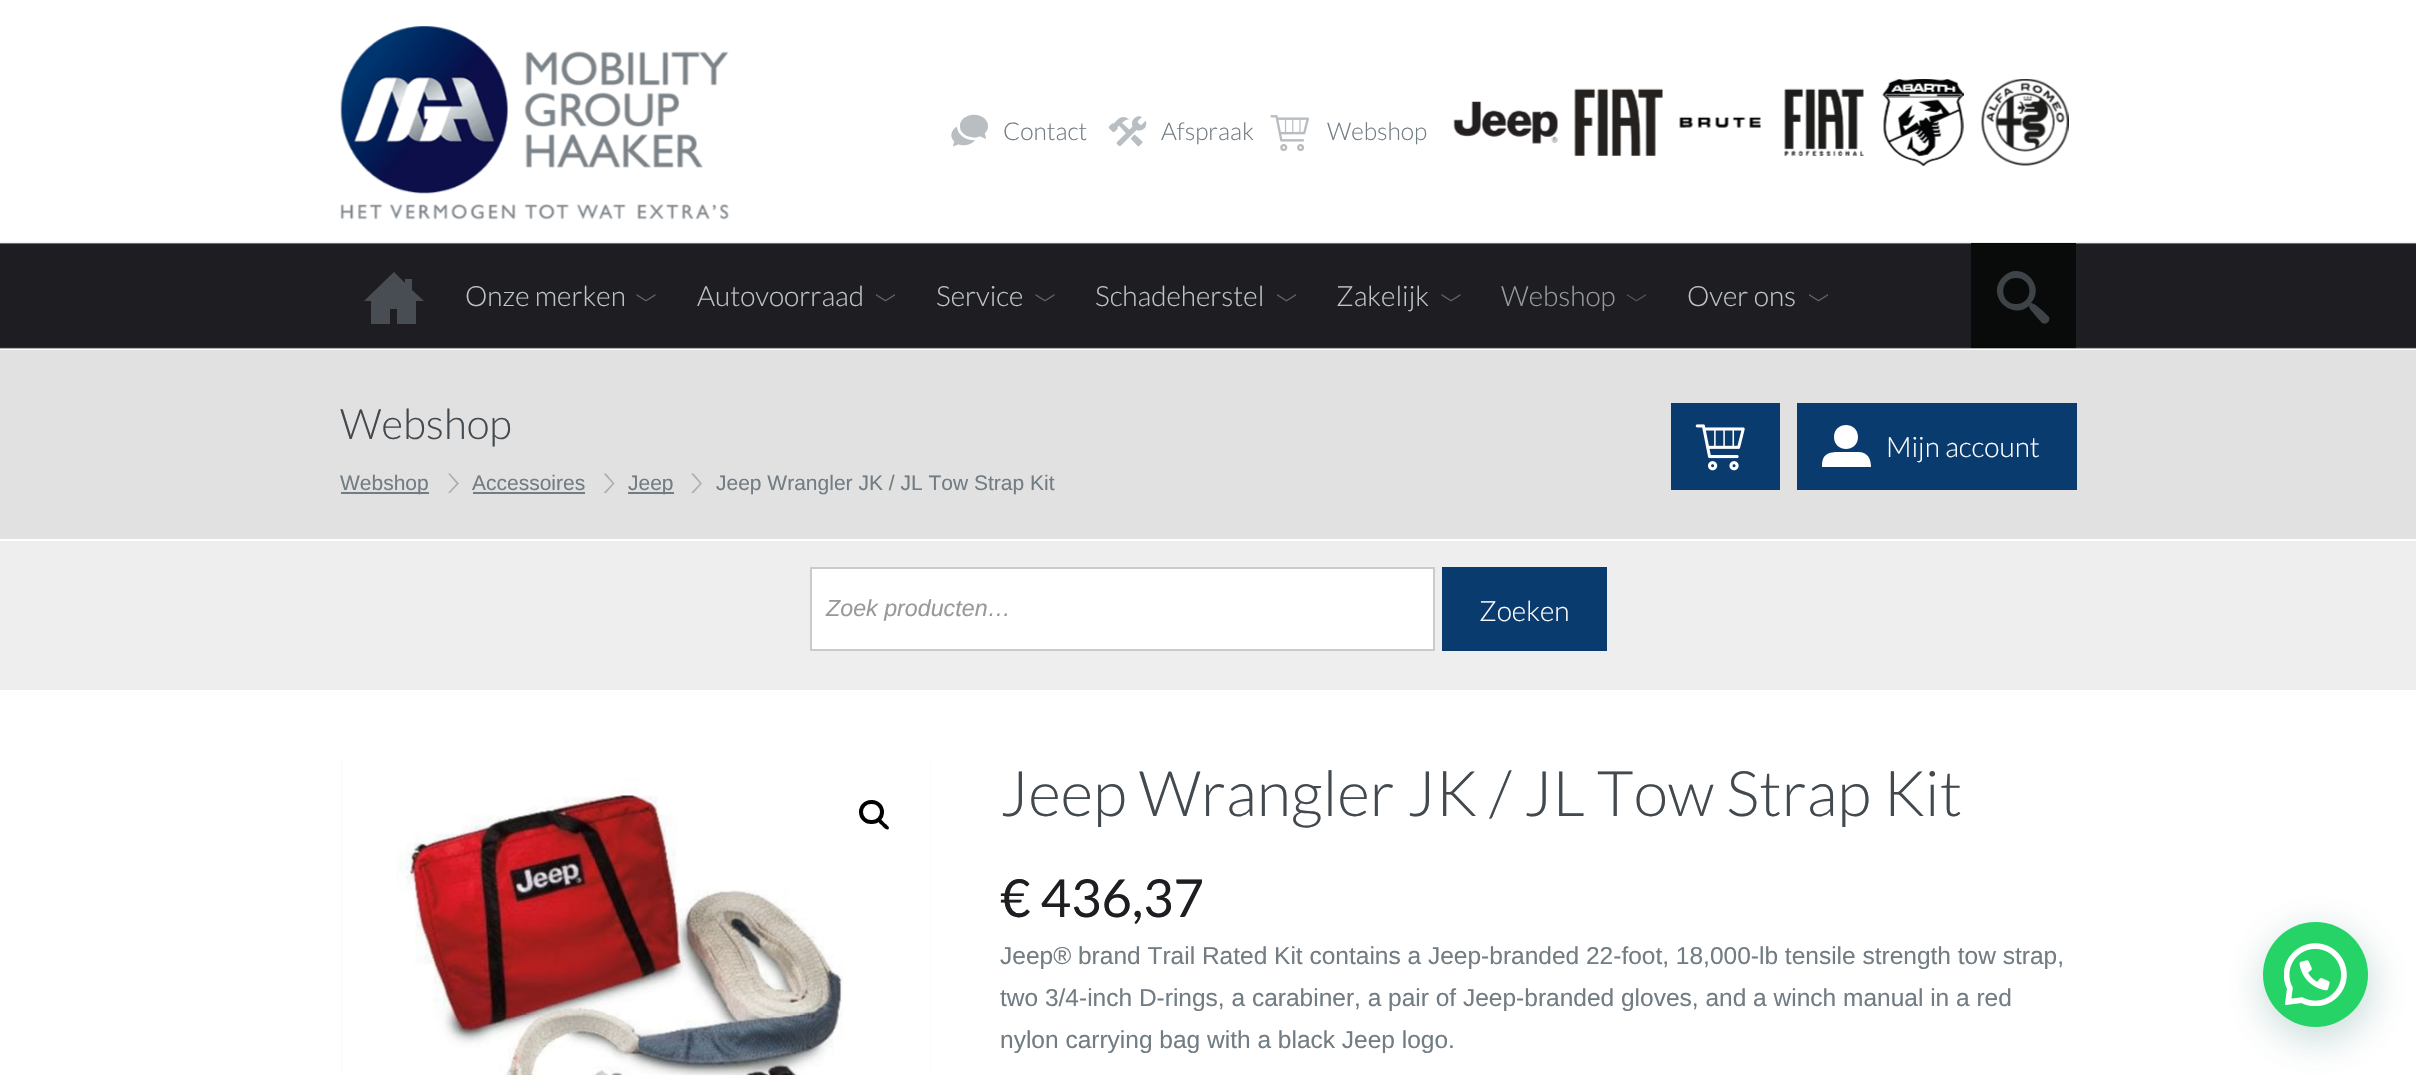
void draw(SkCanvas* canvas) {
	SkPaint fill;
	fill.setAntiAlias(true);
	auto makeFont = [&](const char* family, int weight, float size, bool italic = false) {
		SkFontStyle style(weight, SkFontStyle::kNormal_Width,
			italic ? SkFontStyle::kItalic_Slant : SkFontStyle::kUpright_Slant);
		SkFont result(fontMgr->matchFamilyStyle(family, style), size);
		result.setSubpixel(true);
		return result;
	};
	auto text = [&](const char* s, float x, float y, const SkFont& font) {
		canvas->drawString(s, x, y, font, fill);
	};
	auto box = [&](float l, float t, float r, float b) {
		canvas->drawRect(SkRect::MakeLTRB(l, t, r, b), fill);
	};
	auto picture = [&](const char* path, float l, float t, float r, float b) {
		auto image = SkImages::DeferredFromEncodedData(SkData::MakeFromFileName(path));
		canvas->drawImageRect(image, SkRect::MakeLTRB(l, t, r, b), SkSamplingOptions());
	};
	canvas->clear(0xFFFFFFFF);
	picture("image0.png", 0, 242, 2416, 349);
	picture("image1.png", 340, 26, 729, 220);
	picture("image2.png", 1453, 101, 1558, 144);
	picture("image3.png", 1574, 88, 1663, 156);
	picture("image4.png", 1679, 116, 1761, 128);
	picture("image5.png", 1784, 88, 1864, 156);
	picture("image6.png", 1882, 79, 1964, 167);
	picture("image7.png", 1980, 79, 2069, 166);
	picture("image8.png", 1270, 115, 1309, 152);
	fill.setColor(0xFF484D53);
	canvas->drawPath(SkPathBuilder().moveTo(424, 301).lineTo(416, 301).lineTo(416, 324).lineTo(397, 324).lineTo(397, 309).lineTo(390, 309).lineTo(390, 324).lineTo(371, 324).lineTo(371, 301).lineTo(364, 301).lineTo(394, 272).lineTo(405, 283).lineTo(405, 279).lineTo(412, 279).lineTo(412, 290).close().detach(), fill);
	fill.setColor(0xFF5C656C);
	canvas->drawPath(SkPathBuilder().moveTo(646, 300).lineTo(655.5f, 294).lineTo(655.5f, 295.5f).lineTo(646, 301.5f).lineTo(636.5f, 295.5f).lineTo(636.5f, 294).close().detach(), fill);
	canvas->drawPath(SkPathBuilder().moveTo(885.5f, 300).lineTo(895, 294).lineTo(895, 295.5f).lineTo(885.5f, 301.5f).lineTo(876, 295.5f).lineTo(876, 294).close().detach(), fill);
	canvas->drawPath(SkPathBuilder().moveTo(1045, 300).lineTo(1054.5f, 294).lineTo(1054.5f, 295.5f).lineTo(1045, 301.5f).lineTo(1035.5f, 295.5f).lineTo(1035.5f, 294).close().detach(), fill);
	canvas->drawPath(SkPathBuilder().moveTo(1286.5f, 300).lineTo(1296, 294).lineTo(1296, 295.5f).lineTo(1286.5f, 301.5f).lineTo(1277, 295.5f).lineTo(1277, 294).close().detach(), fill);
	canvas->drawPath(SkPathBuilder().moveTo(1451, 300).lineTo(1460.5f, 294).lineTo(1460.5f, 295.5f).lineTo(1451, 301.5f).lineTo(1441.5f, 295.5f).lineTo(1441.5f, 294).close().detach(), fill);
	fill.setColor(0xFF4D5359);
	canvas->drawPath(SkPathBuilder().moveTo(1636.5f, 300).lineTo(1646, 294).lineTo(1646, 295.5f).lineTo(1636.5f, 301.5f).lineTo(1627, 295.5f).lineTo(1627, 294).close().detach(), fill);
	fill.setColor(0xFF5C656C);
	canvas->drawPath(SkPathBuilder().moveTo(1818.5f, 300).lineTo(1828, 294).lineTo(1828, 295.5f).lineTo(1818.5f, 301.5f).lineTo(1809, 295.5f).lineTo(1809, 294).close().detach(), fill);
	fill.setColor(0xFF090A0A);
	box(1971, 243, 2076, 348);
	fill.setColor(0xFF3D4347);
	canvas->drawPath(SkPathBuilder().moveTo(2048, 316).cubicTo(2052, 319, 2047, 326, 2042, 323).lineTo(2034, 314).cubicTo(2033, 312, 2029, 309, 2029, 306).cubicTo(2011, 321, 1985, 295, 2003, 277).cubicTo(2020, 259, 2047, 285, 2031, 303).cubicTo(2035, 303, 2045, 313, 2048, 316).close().moveTo(2016, 304).cubicTo(2034, 304, 2034, 278, 2016, 278).cubicTo(1999, 278, 1999, 304, 2016, 304).close().detach(), fill);
	fill.setColor(0xFFE1E1E2);
	box(0, 350, 2416, 539);
	fill.setColor(0xFF717C83);
	box(341, 492, 429, 494);
	fill.setColor(0xFFA9AFB3);
	canvas->drawPath(SkPathBuilder().moveTo(450, 473.5f).lineTo(459, 483.5f).lineTo(450, 493).lineTo(448, 493).lineTo(456.5f, 483.5f).lineTo(448, 473.5f).close().detach(), fill);
	fill.setColor(0xFF717C83);
	box(473, 492, 585, 494);
	fill.setColor(0xFFA9AFB3);
	canvas->drawPath(SkPathBuilder().moveTo(606, 473.5f).lineTo(614.5f, 483.5f).lineTo(606, 493).lineTo(603.5f, 493).lineTo(612.5f, 483.5f).lineTo(603.5f, 473.5f).close().detach(), fill);
	fill.setColor(0xFF717C83);
	box(628, 492, 674, 494);
	fill.setColor(0xFFA9AFB3);
	canvas->drawPath(SkPathBuilder().moveTo(693.5f, 473.5f).lineTo(702, 483.5f).lineTo(693.5f, 493).lineTo(691, 493).lineTo(700, 483.5f).lineTo(691, 473.5f).close().detach(), fill);
	fill.setColor(0xFF0A3B6F);
	box(1671, 403, 1780, 490);
	picture("image9.png", 1695, 424, 1745, 471);
	box(1797, 403, 2077, 490);
	fill.setColor(0xFFFFFFFF);
	canvas->drawPath(SkPathBuilder().moveTo(1834, 437).cubicTo(1834, 421, 1858, 421, 1858, 437).cubicTo(1858, 453, 1834, 453, 1834, 437).close().moveTo(1858, 452).cubicTo(1868, 452, 1871, 459, 1871, 467).lineTo(1822, 467).cubicTo(1822, 452, 1830, 452, 1842, 452).close().detach(), fill);
	fill.setColor(0xFFEEEEEE);
	box(0, 541, 2416, 690);
	fill.setColor(0xFFFFFFFF);
	canvas->drawRect(SkRect::MakeLTRB(811, 568, 1434, 650), fill);
	fill.setStyle(SkPaint::kStroke_Style);
	fill.setStrokeWidth(2);
	fill.setColor(0xFFCACACA);
	canvas->drawRect(SkRect::MakeLTRB(811, 568, 1434, 650), fill);
	fill.setStyle(SkPaint::kFill_Style);
	fill.setColor(0xFF0A3B6F);
	box(1442, 567, 1607, 651);
	fill.setColor(0xFFEEEEEE);
	box(341, 760, 931, 1075);
	picture("image10.png", 341, 760, 931, 1075);
	fill.setStyle(SkPaint::kStroke_Style);
	fill.setStrokeWidth(4);
	fill.setColor(0xFF000000);
	canvas->drawRoundRect(SkRect::MakeLTRB(861, 802, 882, 822), 10, 10, fill);
	fill.setStyle(SkPaint::kFill_Style);
	canvas->drawPath(SkPathBuilder().moveTo(878.5f, 819.5f).cubicTo(880.5f, 817.5f, 883.5f, 822, 884.5f, 823).cubicTo(885.5f, 824, 890.5f, 827, 888.5f, 829).cubicTo(886.5f, 831, 883, 826.5f, 882, 825.5f).cubicTo(881, 824.5f, 876.5f, 821.5f, 878.5f, 819.5f).close().detach(), fill);
	fill.setColor(0x3D075E54);
	fill.setMaskFilter(SkMaskFilter::MakeBlur(kNormal_SkBlurStyle, 21));
	canvas->drawRoundRect(SkRect::MakeLTRB(2265, 933, 2370, 1038), 52.5f, 52.5f, fill);
	fill.setMaskFilter(nullptr);
	fill.setColor(0xFF25D366);
	canvas->drawCircle(2315.5f, 974.5f, 52.5f, fill);
	picture("image11.png", 2284, 943, 2347, 1006);
	auto font1 = makeFont("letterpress", 400, 52.5f);
	fill.setColor(0xFFB8BEC1);
	text(",", 943, 154, font1);
	auto font2 = makeFont("Lato", 300, 24.5f);
	fill.setColor(0xFF717C83);
	text("Contact", 1003, 140, font2);
	fill.setColor(0xFFB8BEC1);
	text(")", 1101, 154, font1);
	fill.setColor(0xFF717C83);
	text("Afspraak", 1161, 140, font2);
	text("Webshop", 1327, 140, font2);
	auto font3 = makeFont("Lato", 300, 28);
	fill.setColor(0xFFBEC4C8);
	text("Onze merken", 465, 306, font3);
	text("Autovoorraad", 697, 306, font3);
	text("Service", 936, 306, font3);
	text("Schadeherstel", 1095, 306, font3);
	text("Zakelijk", 1336, 306, font3);
	fill.setColor(0xFF969B9F);
	text("Webshop", 1501, 306, font3);
	fill.setColor(0xFFBEC4C8);
	text("Over ons", 1687, 306, font3);
	auto font4 = makeFont("Lato", 300, 42);
	fill.setColor(0xFF434A4F);
	text("Webshop", 340, 439, font4);
	auto font5 = makeFont("Liberation Sans", 400, 21);
	fill.setColor(0xFF717C83);
	text("Webshop", 340, 490, font5);
	text("Accessoires", 472, 490, font5);
	text("Jeep", 628, 490, font5);
	text("Jeep Wrangler JK / JL Tow Strap Kit", 716, 490, font5);
	fill.setColor(0xFFFFFFFF);
	text("Mijn account", 1886, 457, font3);
	auto font6 = makeFont("Liberation Sans", 400, 23.25f, true);
	fill.setColor(0xFF999999);
	text("Zoek producten…", 826, 616, font6);
	fill.setColor(0xFFFFFFFF);
	text("Zoeken", 1479, 621, font3);
	auto font7 = makeFont("Lato", 300, 63);
	fill.setColor(0xFF434A4F);
	text("Jeep Wrangler JK / JL Tow Strap Kit", 1000, 816, font7);
	auto font8 = makeFont("Lato", 400, 52.5f);
	fill.setColor(0xFF1E1E22);
	text("€ 436,37", 1000, 917, font8);
	auto font9 = makeFont("Liberation Sans", 400, 24.5f);
	fill.setColor(0xFF717C83);
	text("Jeep® brand Trail Rated Kit contains a Jeep-branded 22-foot, 18,000-lb tensile strength tow strap,", 1000, 964, font9);
	text("two 3/4-inch D-rings, a carabiner, a pair of Jeep-branded gloves, and a winch manual in a red", 1000, 1006, font9);
	text("nylon carrying bag with a black Jeep logo.", 1000, 1048, font9);
}
